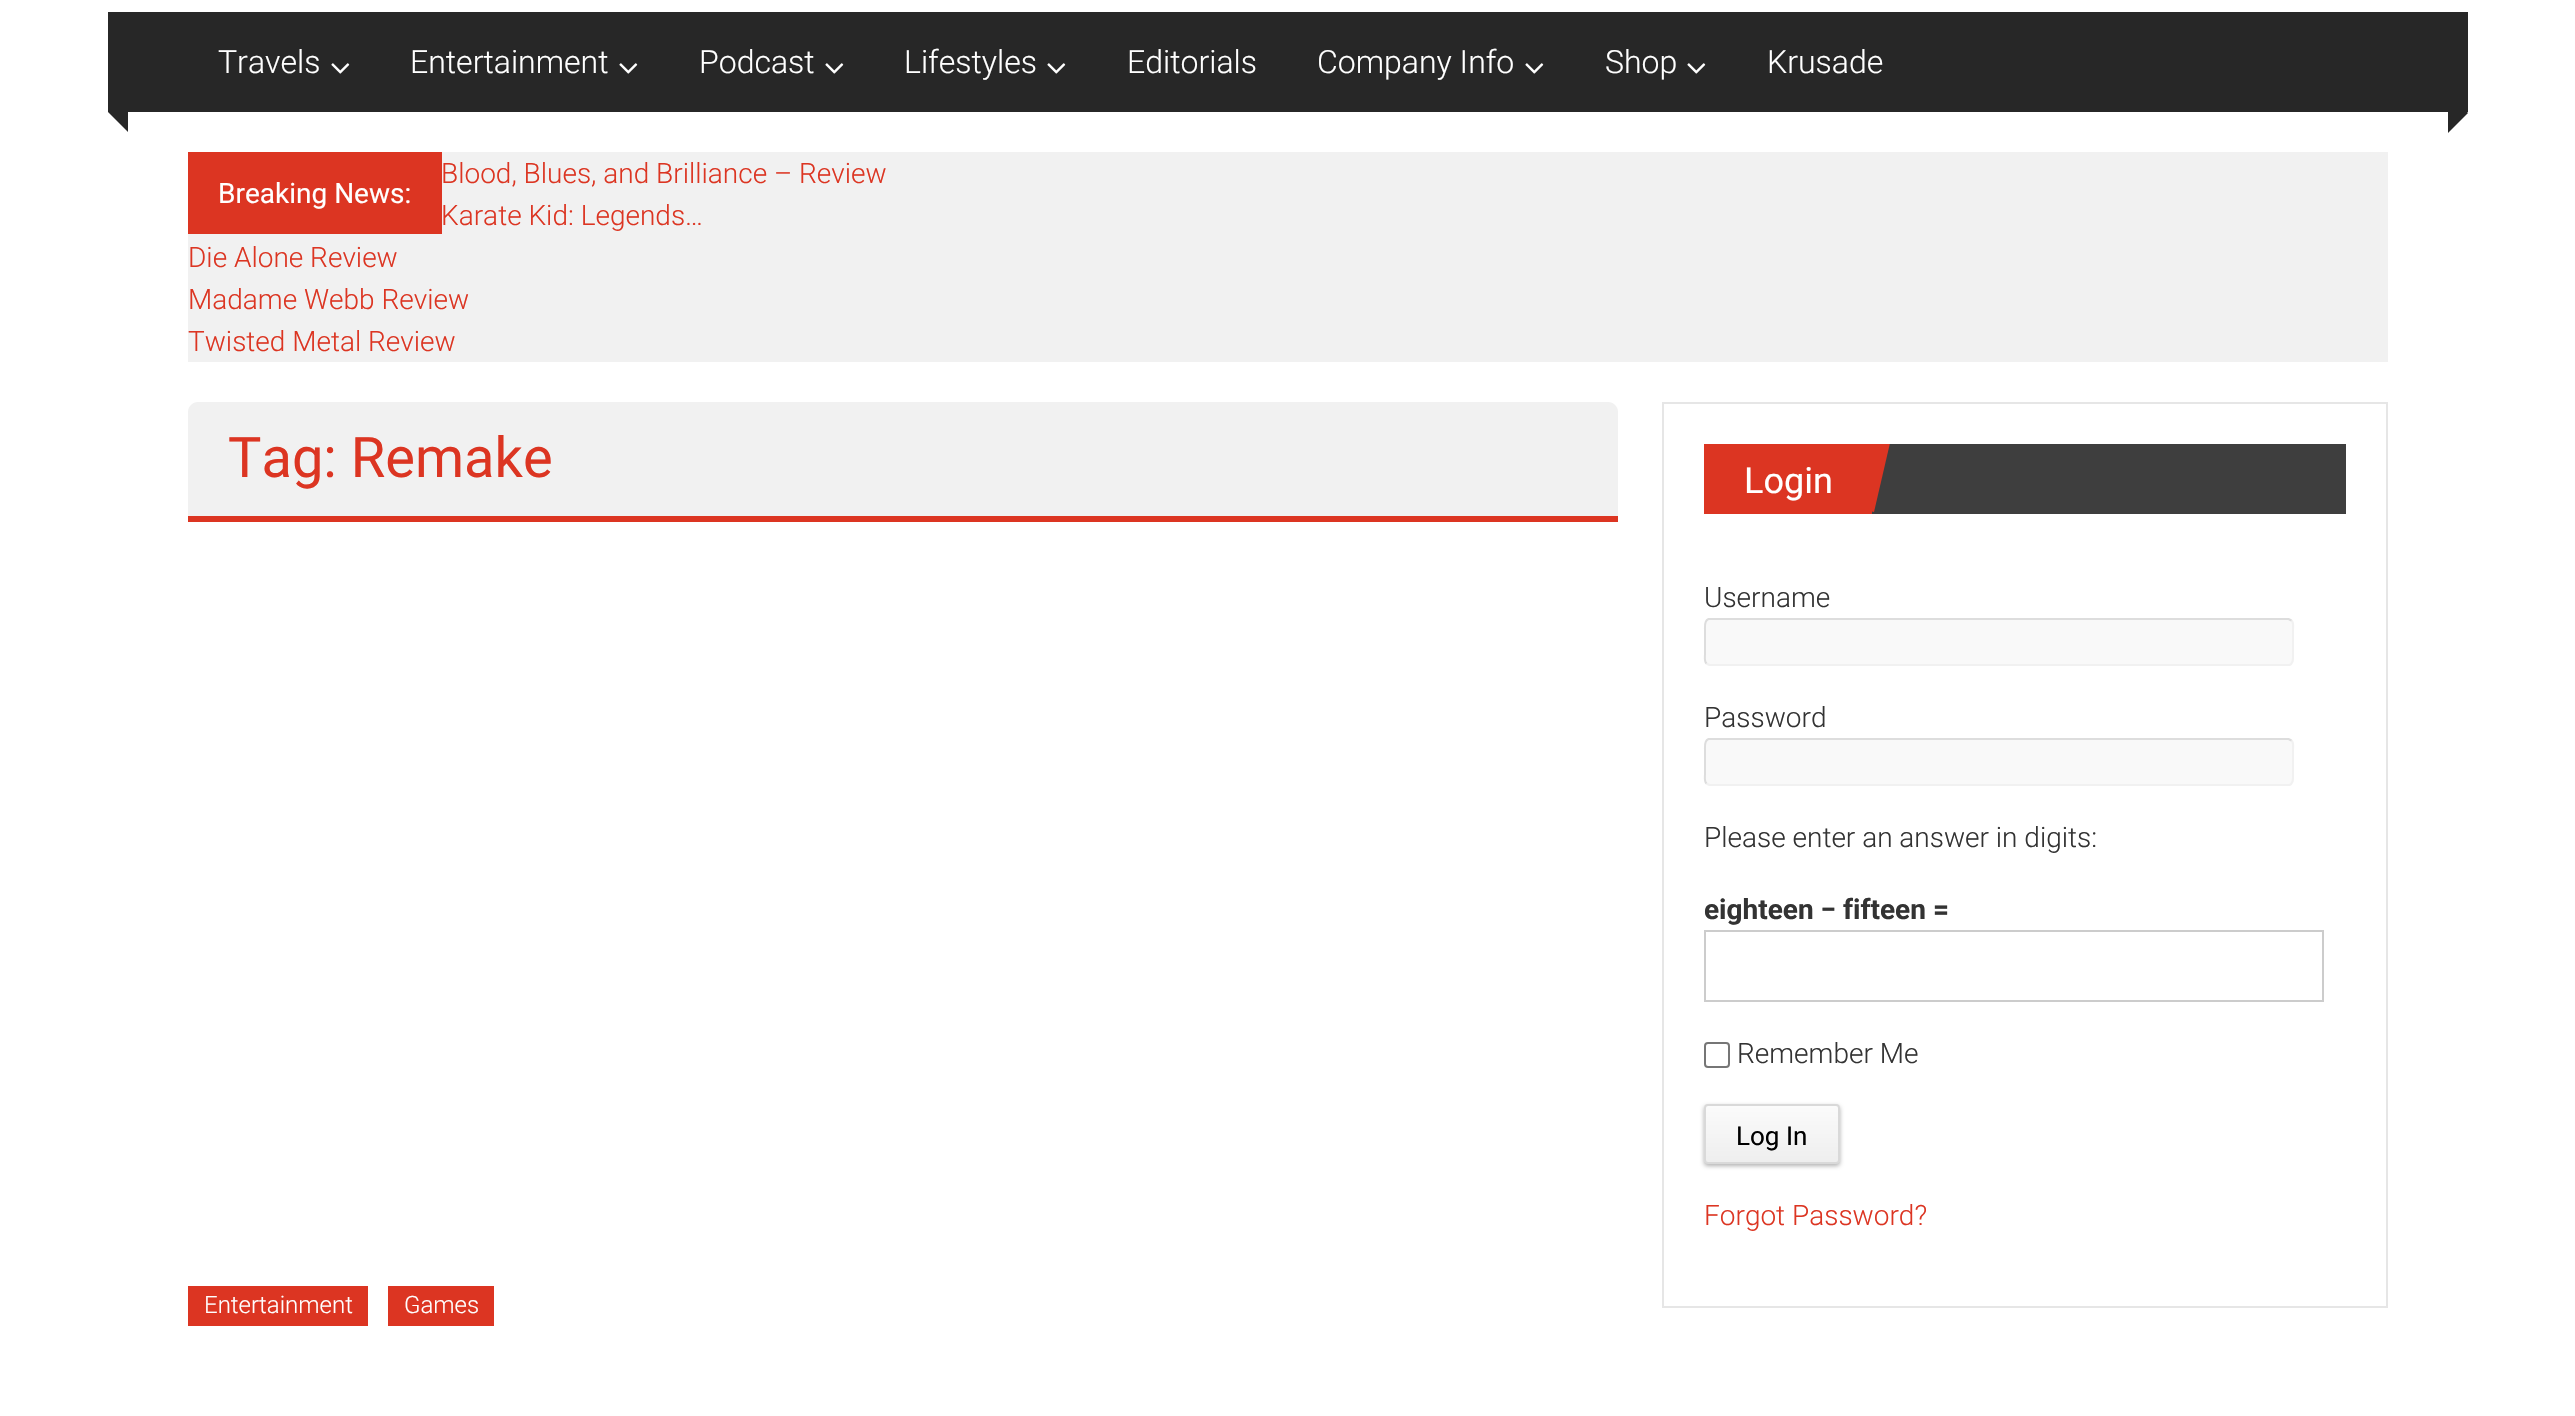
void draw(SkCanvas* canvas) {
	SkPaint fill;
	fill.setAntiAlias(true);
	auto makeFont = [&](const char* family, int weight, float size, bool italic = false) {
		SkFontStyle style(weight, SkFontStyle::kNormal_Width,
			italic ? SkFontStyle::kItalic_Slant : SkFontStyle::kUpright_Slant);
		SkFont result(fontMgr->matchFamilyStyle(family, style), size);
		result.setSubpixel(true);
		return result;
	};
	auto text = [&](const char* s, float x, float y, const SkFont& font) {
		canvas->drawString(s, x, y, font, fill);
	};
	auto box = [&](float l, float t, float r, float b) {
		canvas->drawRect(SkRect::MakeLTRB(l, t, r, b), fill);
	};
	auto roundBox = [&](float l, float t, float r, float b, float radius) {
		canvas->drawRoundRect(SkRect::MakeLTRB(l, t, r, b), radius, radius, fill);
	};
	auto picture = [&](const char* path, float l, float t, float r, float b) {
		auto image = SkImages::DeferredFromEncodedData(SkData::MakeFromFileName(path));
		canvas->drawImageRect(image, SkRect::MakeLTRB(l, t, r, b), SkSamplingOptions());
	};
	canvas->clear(0xFFFFFFFF);
	fill.setColor(0xFF272727);
	box(108, 12, 2448, 112);
	picture("image0.png", 331, 63, 350, 74);
	picture("image0.png", 619, 63, 638, 74);
	picture("image0.png", 825, 63, 844, 74);
	picture("image0.png", 1047, 63, 1066, 74);
	picture("image0.png", 1525, 63, 1544, 74);
	picture("image0.png", 1687, 63, 1706, 74);
	canvas->drawPath(SkPathBuilder().moveTo(128, 92).lineTo(128, 132).lineTo(108, 112).close().detach(), fill);
	canvas->drawPath(SkPathBuilder().moveTo(2448, 133).lineTo(2448, 93).lineTo(2468, 113).close().detach(), fill);
	box(2448, 12, 2468, 112);
	fill.setColor(0xFFF1F1F1);
	box(188, 152, 2388, 362);
	fill.setColor(0xFFDC3522);
	box(188, 152, 442, 234);
	fill.setColor(0xFFF1F1F1);
	canvas->drawPath(SkPathBuilder().moveTo(198, 402).lineTo(1608, 402).cubicTo(1613.5f, 402, 1618, 406.5f, 1618, 412).lineTo(1618, 522).lineTo(188, 522).lineTo(188, 412).cubicTo(188, 406.5f, 192.5f, 402, 198, 402).close().detach(), fill);
	fill.setColor(0xFFDC3522);
	box(188, 516, 1618, 522);
	box(188, 1286, 368, 1326);
	box(388, 1286, 494, 1326);
	fill.setStyle(SkPaint::kStroke_Style);
	fill.setStrokeWidth(2);
	fill.setColor(0xFFE6E6E6);
	canvas->drawRect(SkRect::MakeLTRB(1663, 403, 2387, 1307), fill);
	fill.setStyle(SkPaint::kFill_Style);
	fill.setColor(0xFF3E3E3E);
	box(1872, 444, 2346, 514);
	fill.setColor(0xFFDC3522);
	box(1704, 444, 1872, 514);
	canvas->save();
	canvas->clipRect(SkRect::MakeLTRB(1704, 444, 2346, 514));
	canvas->drawPath(SkPathBuilder().moveTo(1890, 443).lineTo(1874, 512).lineTo(1806, 496).lineTo(1822, 428).close().detach(), fill);
	canvas->restore();
	fill.setColor(0xFFF9F9F9);
	roundBox(1704, 618, 2294, 666, 6);
	fill.setStyle(SkPaint::kStroke_Style);
	fill.setColor(0xFFF1F1F1);
	canvas->drawPath(SkPathBuilder().moveTo(2291.5f, 620.5f).cubicTo(2294, 623, 2293, 627.5f, 2293, 630).lineTo(2293, 654).cubicTo(2293, 657.5f, 2294, 663.5f, 2289.5f, 665).lineTo(1709.5f, 665).lineTo(1706.5f, 663.5f).detach(), fill);
	fill.setColor(0xFFDDDDDD);
	canvas->drawPath(SkPathBuilder().moveTo(1706.5f, 663.5f).cubicTo(1704, 661, 1705, 656.5f, 1705, 654).lineTo(1705, 630).cubicTo(1705, 626.5f, 1704, 620.5f, 1708.5f, 619).lineTo(2288.5f, 619).lineTo(2291.5f, 620.5f).detach(), fill);
	fill.setStyle(SkPaint::kFill_Style);
	fill.setColor(0xFFF9F9F9);
	roundBox(1704, 738, 2294, 786, 6);
	fill.setStyle(SkPaint::kStroke_Style);
	fill.setColor(0xFFF1F1F1);
	canvas->drawPath(SkPathBuilder().moveTo(2291.5f, 740.5f).cubicTo(2294, 743, 2293, 747.5f, 2293, 750).lineTo(2293, 774).cubicTo(2293, 777.5f, 2294, 783.5f, 2289.5f, 785).lineTo(1709.5f, 785).lineTo(1706.5f, 783.5f).detach(), fill);
	fill.setColor(0xFFDDDDDD);
	canvas->drawPath(SkPathBuilder().moveTo(1706.5f, 783.5f).cubicTo(1704, 781, 1705, 776.5f, 1705, 774).lineTo(1705, 750).cubicTo(1705, 746.5f, 1704, 740.5f, 1708.5f, 739).lineTo(2288.5f, 739).lineTo(2291.5f, 740.5f).detach(), fill);
	fill.setColor(0xFFCCCCCC);
	canvas->drawRect(SkRect::MakeLTRB(1705, 931, 2323, 1001), fill);
	fill.setColor(0xFF767676);
	canvas->drawRoundRect(SkRect::MakeLTRB(1705, 1043, 1729, 1067), 3, 3, fill);
	fill.setStyle(SkPaint::kFill_Style);
	fill.setColor(0x4D000000);
	fill.setMaskFilter(SkMaskFilter::MakeBlur(kNormal_SkBlurStyle, 2));
	canvas->drawRoundRect(SkRect::MakeLTRB(1704, 1106, 1840, 1166), 4, 4, fill);
	fill.setMaskFilter(nullptr);
	canvas->save();
	canvas->clipPath(SkPathBuilder().moveTo(1708, 1104).lineTo(1836, 1104).cubicTo(1838, 1104, 1840, 1106, 1840, 1108).lineTo(1840, 1160).cubicTo(1840, 1162, 1838, 1164, 1836, 1164).lineTo(1708, 1164).cubicTo(1706, 1164, 1704, 1162, 1704, 1160).lineTo(1704, 1108).cubicTo(1704, 1106, 1706, 1104, 1708, 1104).close().detach(), true);
	{
		const SkColor colors[] = {0xFFFBFBFB, 0xFFEEEEEE};
		const float stops[] = {0, 1};
		const SkPoint ends[] = {{1772, 1106}, {1772, 1162}};
		fill.setShader(SkGradientShader::MakeLinear(ends, colors, stops, 2, SkTileMode::kClamp));
		fill.setAlpha(255);
	}
	box(1704, 1106, 1840, 1162);
	canvas->restore();
	fill.setStyle(SkPaint::kStroke_Style);
	fill.setShader(nullptr);
	fill.setColor(0xFFD9D9D9);
	canvas->drawRoundRect(SkRect::MakeLTRB(1705, 1105, 1839, 1163), 3, 3, fill);
	auto font1 = makeFont("Roboto", 300, 32);
	fill.setStyle(SkPaint::kFill_Style);
	fill.setColor(0xFFFFFFFF);
	text("Travels", 218, 73, font1);
	text("Entertainment", 410, 73, font1);
	text("Podcast", 699, 73, font1);
	text("Lifestyles", 904, 73, font1);
	text("Editorials", 1127, 73, font1);
	text("Company Info", 1317, 73, font1);
	text("Shop", 1605, 73, font1);
	text("Krusade", 1767, 73, font1);
	auto font2 = makeFont("Roboto", 300, 28);
	fill.setColor(0xFFDC3522);
	text("Blood, Blues, and Brilliance – Review", 441, 183, font2);
	text("Karate Kid: Legends…", 441, 225, font2);
	text("Die Alone Review", 188, 267, font2);
	text("Madame Webb Review", 188, 309, font2);
	text("Twisted Metal Review", 188, 351, font2);
	auto font3 = makeFont("Roboto", 400, 28);
	fill.setColor(0xFFFFFFFF);
	text("Breaking News:", 218, 203, font3);
	auto font4 = makeFont("Roboto", 400, 56);
	fill.setColor(0xFFDC3522);
	text("Tag: Remake", 228, 477, font4);
	auto font5 = makeFont("Roboto", 300, 24);
	fill.setColor(0xFFFFFFFF);
	text("Entertainment", 204, 1313, font5);
	text("Games", 404, 1313, font5);
	auto font6 = makeFont("Roboto", 400, 36);
	text("Login", 1744, 493, font6);
	fill.setColor(0xFF333333);
	text("Username", 1704, 607, font2);
	text("Password", 1704, 727, font2);
	text("Please enter an answer in digits:", 1704, 847, font2);
	auto font7 = makeFont("Roboto", 700, 28);
	text("eighteen − fifteen =", 1704, 919, font7);
	text("Remember Me", 1737, 1063, font2);
	auto font8 = makeFont("Roboto", 400, 26);
	fill.setColor(0xFF000000);
	text("Log In", 1736, 1145, font8);
	fill.setColor(0xFFDC3522);
	text("Forgot Password?", 1704, 1225, font2);
}
